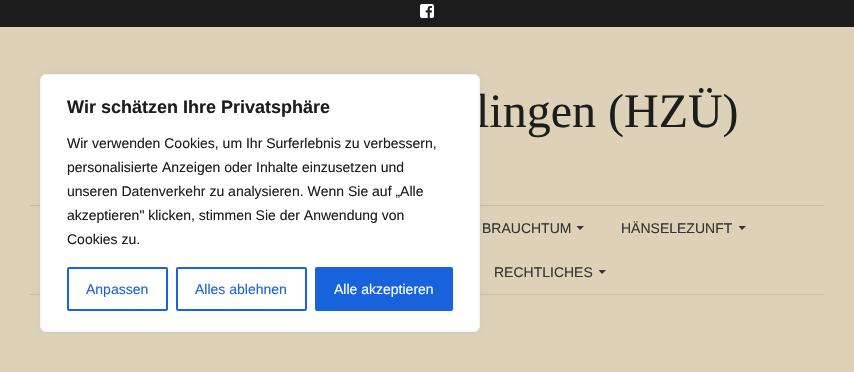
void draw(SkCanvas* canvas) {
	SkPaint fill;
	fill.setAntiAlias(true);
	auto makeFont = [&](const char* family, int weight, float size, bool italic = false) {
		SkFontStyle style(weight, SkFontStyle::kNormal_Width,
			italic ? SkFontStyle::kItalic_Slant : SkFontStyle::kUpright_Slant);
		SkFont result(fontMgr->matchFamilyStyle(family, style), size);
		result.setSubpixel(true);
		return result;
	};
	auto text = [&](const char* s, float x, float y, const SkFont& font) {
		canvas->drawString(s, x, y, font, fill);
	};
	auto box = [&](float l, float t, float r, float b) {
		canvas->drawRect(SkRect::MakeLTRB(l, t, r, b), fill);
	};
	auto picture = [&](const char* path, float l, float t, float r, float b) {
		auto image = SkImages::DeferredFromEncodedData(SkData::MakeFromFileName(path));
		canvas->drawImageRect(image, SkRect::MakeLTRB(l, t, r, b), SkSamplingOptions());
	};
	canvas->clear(0xFFDDD2B8);
	fill.setColor(0xFFC7BDA6);
	box(30, 205, 824, 206);
	box(30, 294, 824, 295);
	fill.setColor(0x4DACABAB);
	fill.setMaskFilter(SkMaskFilter::MakeBlur(kNormal_SkBlurStyle, 5));
	canvas->drawRoundRect(SkRect::MakeLTRB(40, 73, 480, 331), 6, 6, fill);
	fill.setMaskFilter(nullptr);
	fill.setColor(0xFF1D1D1D);
	box(0, 0, 854, 27);
	picture("image0.png", 420, 4, 434, 18);
	fill.setColor(0xFF333333);
	canvas->drawPath(SkPathBuilder().moveTo(576.5f, 226).lineTo(580, 230).lineTo(584, 226).close().detach(), fill);
	canvas->drawPath(SkPathBuilder().moveTo(738.5f, 226).lineTo(742, 230).lineTo(746, 226).close().detach(), fill);
	canvas->drawPath(SkPathBuilder().moveTo(598.5f, 270).lineTo(602, 274).lineTo(606, 270).close().detach(), fill);
	auto font1 = makeFont("Liberation Serif", 400, 48);
	fill.setColor(0xFF1D1D1D);
	text("lingen (HZÜ)", 476, 127, font1);
	fill.setColor(0xFFFFFFFF);
	canvas->drawRoundRect(SkRect::MakeLTRB(40.5f, 74.5f, 479.5f, 331.5f), 5.5f, 5.5f, fill);
	fill.setStyle(SkPaint::kStroke_Style);
	fill.setStrokeWidth(1);
	fill.setColor(0xFFF4F4F4);
	canvas->drawRoundRect(SkRect::MakeLTRB(40.5f, 74.5f, 479.5f, 331.5f), 5.5f, 5.5f, fill);
	fill.setStyle(SkPaint::kFill_Style);
	fill.setColor(0xFF1863DC);
	canvas->drawRoundRect(SkRect::MakeLTRB(316, 268, 452, 310), 1, 1, fill);
	fill.setStyle(SkPaint::kStroke_Style);
	fill.setStrokeWidth(2);
	canvas->drawRoundRect(SkRect::MakeLTRB(316, 268, 452, 310), 1, 1, fill);
	auto font2 = makeFont("Liberation Sans", 400, 14);
	fill.setStyle(SkPaint::kFill_Style);
	fill.setColor(0xFFFFFFFF);
	text("Alle akzeptieren", 334, 294, font2);
	fill.setStyle(SkPaint::kStroke_Style);
	fill.setColor(0xFF1863DC);
	canvas->drawRoundRect(SkRect::MakeLTRB(177, 268, 306, 310), 1, 1, fill);
	fill.setStyle(SkPaint::kFill_Style);
	text("Alles ablehnen", 195, 294, font2);
	fill.setStyle(SkPaint::kStroke_Style);
	canvas->drawRoundRect(SkRect::MakeLTRB(68, 268, 167, 310), 1, 1, fill);
	fill.setStyle(SkPaint::kFill_Style);
	text("Anpassen", 86, 294, font2);
	fill.setColor(0xFF1D1D1D);
	text("Cookies zu.", 67, 244, font2);
	text("akzeptieren\" klicken, stimmen Sie der Anwendung von", 67, 220, font2);
	text("unseren Datenverkehr zu analysieren. Wenn Sie auf „Alle", 67, 196, font2);
	text("personalisierte Anzeigen oder Inhalte einzusetzen und", 67, 172, font2);
	text("Wir verwenden Cookies, um Ihr Surferlebnis zu verbessern,", 67, 148, font2);
	auto font3 = makeFont("Liberation Sans", 700, 18);
	text("Wir schätzen Ihre Privatsphäre", 67, 113, font3);
	fill.setColor(0xFF333333);
	text("BRAUCHTUM", 482, 233, font2);
	text("HÄNSELEZUNFT", 621, 233, font2);
	text("RECHTLICHES", 494, 277, font2);
}
